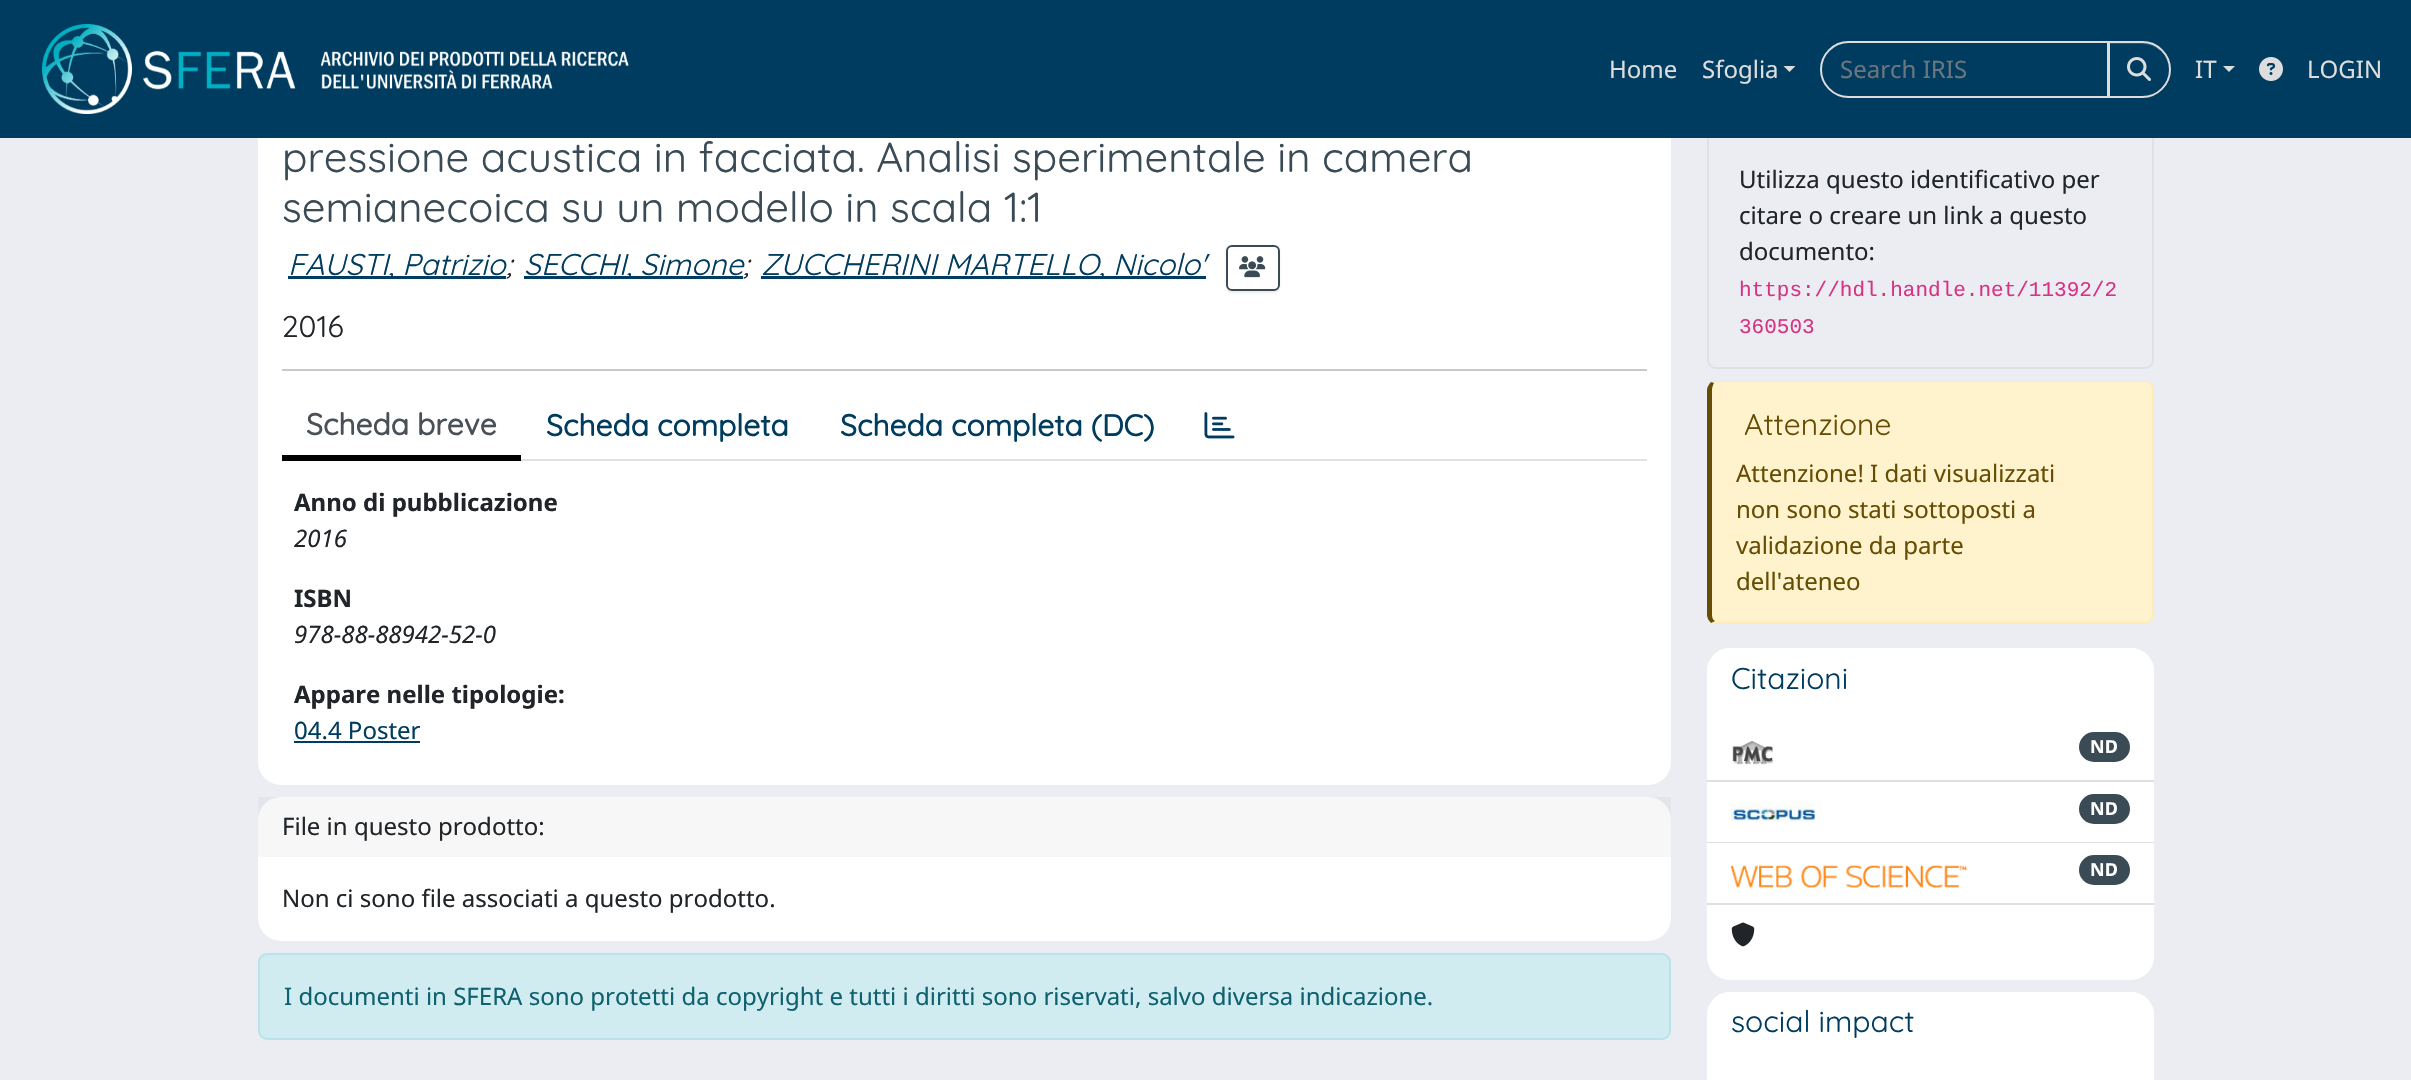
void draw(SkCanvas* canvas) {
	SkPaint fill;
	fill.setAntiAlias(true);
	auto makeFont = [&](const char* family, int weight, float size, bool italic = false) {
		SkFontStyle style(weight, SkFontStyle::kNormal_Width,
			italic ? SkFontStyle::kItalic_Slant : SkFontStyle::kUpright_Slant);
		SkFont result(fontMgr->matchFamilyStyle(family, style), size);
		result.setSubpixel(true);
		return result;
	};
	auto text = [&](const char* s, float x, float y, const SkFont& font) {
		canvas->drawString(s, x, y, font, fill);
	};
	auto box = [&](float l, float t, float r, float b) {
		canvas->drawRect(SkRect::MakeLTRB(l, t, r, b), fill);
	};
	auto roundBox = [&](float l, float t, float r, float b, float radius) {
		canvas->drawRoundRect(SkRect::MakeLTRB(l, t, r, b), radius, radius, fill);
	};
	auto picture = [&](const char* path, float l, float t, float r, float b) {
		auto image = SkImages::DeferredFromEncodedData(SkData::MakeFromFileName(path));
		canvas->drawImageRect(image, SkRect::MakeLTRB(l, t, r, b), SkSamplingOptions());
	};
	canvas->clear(0xFFECEDF2);
	fill.setColor(0xFFFFFFFF);
	roundBox(258, 57, 1671, 785, 23);
	fill.setStyle(SkPaint::kStroke_Style);
	fill.setStrokeWidth(2);
	fill.setColor(0xFFDEE2E6);
	canvas->drawRoundRect(SkRect::MakeLTRB(1708, 58, 2153, 368), 8, 8, fill);
	fill.setStyle(SkPaint::kFill_Style);
	fill.setColor(0xFF003C5F);
	box(0, 0, 2411, 138);
	picture("image0.png", 42, 24, 629, 114);
	fill.setColor(0xFFDDDDDD);
	canvas->drawPath(SkPathBuilder().moveTo(1783.5f, 66).lineTo(1795.5f, 66).lineTo(1789.5f, 72).close().detach(), fill);
	fill.setStyle(SkPaint::kStroke_Style);
	canvas->drawPath(SkPathBuilder().moveTo(1848.5f, 42).lineTo(2108, 42).lineTo(2108, 97).lineTo(1848.5f, 97).cubicTo(1833.5f, 97, 1821, 84.5f, 1821, 69.5f).cubicTo(1821, 54.5f, 1833.5f, 42, 1848.5f, 42).close().detach(), fill);
	fill.setStyle(SkPaint::kFill_Style);
	fill.setColor(0x12000000);
	fill.setMaskFilter(SkMaskFilter::MakeBlur(kNormal_SkBlurStyle, 1));
	canvas->drawRoundRect(SkRect::MakeLTRB(2108, 42, 2171, 99), 28.5f, 28.5f, fill);
	fill.setMaskFilter(nullptr);
	fill.setColor(0xFF003C5F);
	canvas->drawPath(SkPathBuilder().moveTo(2108, 41).lineTo(2142.5f, 41).cubicTo(2158, 41, 2171, 54, 2171, 69.5f).cubicTo(2171, 85, 2158, 98, 2142.5f, 98).lineTo(2108, 98).close().detach(), fill);
	fill.setColor(0xFF265977);
	canvas->drawPath(SkPathBuilder().moveTo(2109, 44).lineTo(2142, 44).cubicTo(2157, 44, 2169, 56, 2169, 70).lineTo(2169, 69).cubicTo(2169, 54, 2157, 42, 2142, 42).lineTo(2109, 42).close().detach(), fill);
	fill.setStyle(SkPaint::kStroke_Style);
	fill.setColor(0xFFDDDDDD);
	canvas->drawPath(SkPathBuilder().moveTo(2109, 42).lineTo(2142.5f, 42).cubicTo(2157.5f, 42, 2170, 54.5f, 2170, 69.5f).cubicTo(2170, 84.5f, 2157.5f, 97, 2142.5f, 97).lineTo(2109, 97).close().detach(), fill);
	picture("image1.png", 2127, 57, 2151, 81);
	fill.setStyle(SkPaint::kFill_Style);
	canvas->drawPath(SkPathBuilder().moveTo(2223, 66).lineTo(2235, 66).lineTo(2229, 72).close().detach(), fill);
	picture("image2.png", 2259, 57, 2283, 81);
	fill.setColor(0xFF003C5F);
	box(288, 276, 506, 279);
	box(524, 276, 743, 279);
	box(761, 276, 1206, 279);
	canvas->save();
	canvas->clipPath(SkPathBuilder(SkPathFillType::kEvenOdd).moveTo(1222, 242).lineTo(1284, 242).lineTo(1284, 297).lineTo(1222, 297).close().moveTo(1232, 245).lineTo(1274, 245).cubicTo(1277.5f, 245, 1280, 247.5f, 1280, 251).lineTo(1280, 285).cubicTo(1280, 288.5f, 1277.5f, 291, 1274, 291).lineTo(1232, 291).cubicTo(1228.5f, 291, 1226, 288.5f, 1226, 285).lineTo(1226, 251).cubicTo(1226, 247.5f, 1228.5f, 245, 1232, 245).close().detach(), true);
	fill.setColor(0x12000000);
	fill.setMaskFilter(SkMaskFilter::MakeBlur(kNormal_SkBlurStyle, 1));
	canvas->drawRoundRect(SkRect::MakeLTRB(1226, 246, 1280, 293), 6, 6, fill);
	fill.setMaskFilter(nullptr);
	canvas->restore();
	fill.setStyle(SkPaint::kStroke_Style);
	fill.setColor(0xFF3A4B55);
	canvas->drawRoundRect(SkRect::MakeLTRB(1227, 246, 1279, 290), 5, 5, fill);
	picture("image3.png", 1239, 256, 1266, 278);
	fill.setStyle(SkPaint::kFill_Style);
	fill.setColor(0xFFC8C9CA);
	box(282, 369, 1647, 371);
	fill.setColor(0xFFDEE2E6);
	box(521, 459, 1647, 461);
	fill.setColor(0xFF000000);
	box(282, 455, 521, 461);
	picture("image4.png", 1204, 412, 1235, 439);
	fill.setColor(0xFF003C5F);
	box(294, 741, 420, 743);
	fill.setColor(0xFFFFFFFF);
	roundBox(258, 797, 1671, 941, 23);
	fill.setColor(0x08000000);
	box(258, 797, 1671, 857);
	fill.setColor(0xFFD1ECF1);
	canvas->drawRoundRect(SkRect::MakeLTRB(259, 954, 1670, 1039), 8, 8, fill);
	fill.setStyle(SkPaint::kStroke_Style);
	fill.setColor(0xFFB9E3EA);
	canvas->drawRoundRect(SkRect::MakeLTRB(259, 954, 1670, 1039), 8, 8, fill);
	fill.setStyle(SkPaint::kFill_Style);
	fill.setColor(0xFFFFF3CD);
	canvas->drawPath(SkPathBuilder().moveTo(1716, 382).lineTo(2145, 382).cubicTo(2149, 382, 2152, 386, 2152, 390).lineTo(2152, 615).cubicTo(2152, 619, 2149, 622, 2145, 622).lineTo(1716, 622).cubicTo(1714, 622, 1712, 619, 1712, 615).lineTo(1712, 390).cubicTo(1712, 386, 1714, 382, 1716, 382).close().detach(), fill);
	fill.setColor(0xFFFFECB5);
	canvas->drawPath(SkPathBuilder().moveTo(1716, 381).cubicTo(1714, 381, 1713, 382, 1711, 382).lineTo(1714, 383).lineTo(1716, 382).lineTo(2145, 382).cubicTo(2147, 382, 2149, 383, 2150, 385).lineTo(2151, 384).cubicTo(2150, 382, 2148, 381, 2145, 381).close().detach(), fill);
	canvas->drawPath(SkPathBuilder().moveTo(2154, 615).lineTo(2154, 390).cubicTo(2154, 388, 2153, 385, 2151, 384).lineTo(2150, 385).cubicTo(2151, 386, 2152, 388, 2152, 390).lineTo(2152, 615).cubicTo(2152, 617, 2151, 619, 2150, 620).lineTo(2151, 621).cubicTo(2153, 620, 2154, 618, 2154, 615).close().detach(), fill);
	canvas->drawPath(SkPathBuilder().moveTo(1716, 624).lineTo(2145, 624).cubicTo(2148, 624, 2150, 623, 2151, 621).lineTo(2150, 620).cubicTo(2149, 621, 2147, 622, 2145, 622).lineTo(1716, 622).lineTo(1715, 621).lineTo(1711, 623).cubicTo(1713, 623, 1714, 624, 1716, 624).close().detach(), fill);
	fill.setColor(0xFF664D03);
	canvas->drawPath(SkPathBuilder().moveTo(1707, 390).lineTo(1707, 615).cubicTo(1707, 618, 1709, 621, 1711, 623).lineTo(1715, 621).cubicTo(1713, 620, 1712, 618, 1712, 615).lineTo(1712, 390).cubicTo(1712, 387, 1713, 385, 1714, 383).lineTo(1711, 382).cubicTo(1709, 384, 1707, 387, 1707, 390).close().detach(), fill);
	fill.setColor(0xFFFFFFFF);
	roundBox(1707, 648, 2154, 980, 23);
	canvas->drawPath(SkPathBuilder().moveTo(1730, 648).lineTo(2131, 648).cubicTo(2143.5f, 648, 2154, 658.5f, 2154, 671).lineTo(2154, 720).lineTo(1707, 720).lineTo(1707, 671).cubicTo(1707, 658.5f, 1717.5f, 648, 1730, 648).close().detach(), fill);
	fill.setColor(0xFFDFDFDF);
	box(1707, 780, 2154, 782);
	picture("image5.png", 1732, 741, 1773, 765);
	fill.setColor(0xFF3A4B55);
	roundBox(2079, 732, 2130, 762, 15);
	fill.setColor(0xFFDFDFDF);
	box(1707, 842, 2154, 843);
	picture("image6.png", 1731, 802, 1815, 822);
	fill.setColor(0xFF3A4B55);
	roundBox(2079, 794, 2130, 824, 15);
	fill.setColor(0xFFDFDFDF);
	box(1707, 903, 2154, 905);
	picture("image7.png", 1731, 865, 1967, 888);
	fill.setColor(0xFF3A4B55);
	roundBox(2079, 855, 2130, 885, 15);
	picture("image8.png", 1731, 922, 1755, 947);
	fill.setColor(0xFFFFFFFF);
	roundBox(1707, 992, 2154, 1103, 23);
	canvas->drawPath(SkPathBuilder().moveTo(1730, 992).lineTo(2131, 992).cubicTo(2143.5f, 992, 2154, 1002.5f, 2154, 1015).lineTo(2154, 1064).lineTo(1707, 1064).lineTo(1707, 1015).cubicTo(1707, 1002.5f, 1717.5f, 992, 1730, 992).close().detach(), fill);
	auto font1 = makeFont("Noto Sans", 400, 24);
	fill.setColor(0xFFDDDDDD);
	text("Home", 1609, 78, font1);
	text("Sfoglia", 1702, 78, font1);
	fill.setColor(0xFF6C757D);
	text("Search IRIS", 1840, 78, font1);
	fill.setColor(0xFFDDDDDD);
	text("IT", 2195, 78, font1);
	text("LOGIN", 2307, 78, font1);
	auto font2 = makeFont("Quicksand", 400, 42);
	fill.setColor(0xFF3A4B55);
	text("pressione acustica in facciata. Analisi sperimentale in camera", 282, 172, font2);
	text("semianecoica su un modello in scala 1:1", 282, 222, font2);
	auto font3 = makeFont("Quicksand", 400, 30, true);
	fill.setColor(0xFF003C5F);
	text("FAUSTI, Patrizio", 288, 275, font3);
	fill.setColor(0xFF212529);
	text(";", 506, 275, font3);
	fill.setColor(0xFF003C5F);
	text("SECCHI, Simone", 524, 275, font3);
	fill.setColor(0xFF212529);
	text(";", 743, 275, font3);
	fill.setColor(0xFF003C5F);
	text("ZUCCHERINI MARTELLO, Nicolo'", 761, 275, font3);
	auto font4 = makeFont("Quicksand", 400, 30);
	fill.setColor(0xFF212529);
	text("2016", 282, 337, font4);
	auto font5 = makeFont("Quicksand", 700, 30);
	fill.setColor(0xFF495057);
	text("Scheda breve", 306, 435, font5);
	fill.setColor(0xFF003C5F);
	text("Scheda completa", 546, 436, font5);
	text("Scheda completa (DC)", 840, 436, font5);
	auto font6 = makeFont("Noto Sans", 700, 24);
	fill.setColor(0xFF212529);
	text("Anno di pubblicazione", 294, 511, font6);
	auto font7 = makeFont("Noto Sans", 400, 24, true);
	text("2016", 294, 547, font7);
	text("ISBN", 294, 607, font6);
	text("978-88-88942-52-0", 294, 643, font7);
	text("Appare nelle tipologie:", 294, 703, font6);
	fill.setColor(0xFF003C5F);
	text("04.4 Poster", 294, 739, font1);
	fill.setColor(0xFF212529);
	text("File in questo prodotto:", 282, 835, font1);
	text("Non ci sono file associati a questo prodotto.", 282, 907, font1);
	fill.setColor(0xFF0E616E);
	text("I documenti in SFERA sono protetti da copyright e tutti i diritti sono riservati, salvo diversa indicazione.", 284, 1005, font1);
	fill.setColor(0xFF212529);
	text("Utilizza questo identificativo per", 1739, 188, font1);
	text("citare o creare un link a questo", 1739, 224, font1);
	text("documento:", 1739, 260, font1);
	auto font8 = makeFont("Liberation Mono", 400, 21);
	fill.setColor(0xFFD63384);
	text("https://hdl.handle.net/11392/2", 1739, 296, font8);
	text("360503", 1739, 333, font8);
	fill.setColor(0xFF664D03);
	text("Attenzione", 1744, 435, font4);
	text("Attenzione! I dati visualizzati", 1736, 482, font1);
	text("non sono stati sottoposti a", 1736, 518, font1);
	text("validazione da parte", 1736, 554, font1);
	text("dell'ateneo", 1736, 590, font1);
	fill.setColor(0xFF003C5F);
	text("Citazioni", 1731, 689, font4);
	auto font9 = makeFont("Noto Sans", 700, 18);
	fill.setColor(0xFFFFFFFF);
	text("ND", 2090, 753, font9);
	text("ND", 2090, 815, font9);
	text("ND", 2090, 876, font9);
	fill.setColor(0xFF003C5F);
	text("social impact", 1731, 1032, font4);
}
